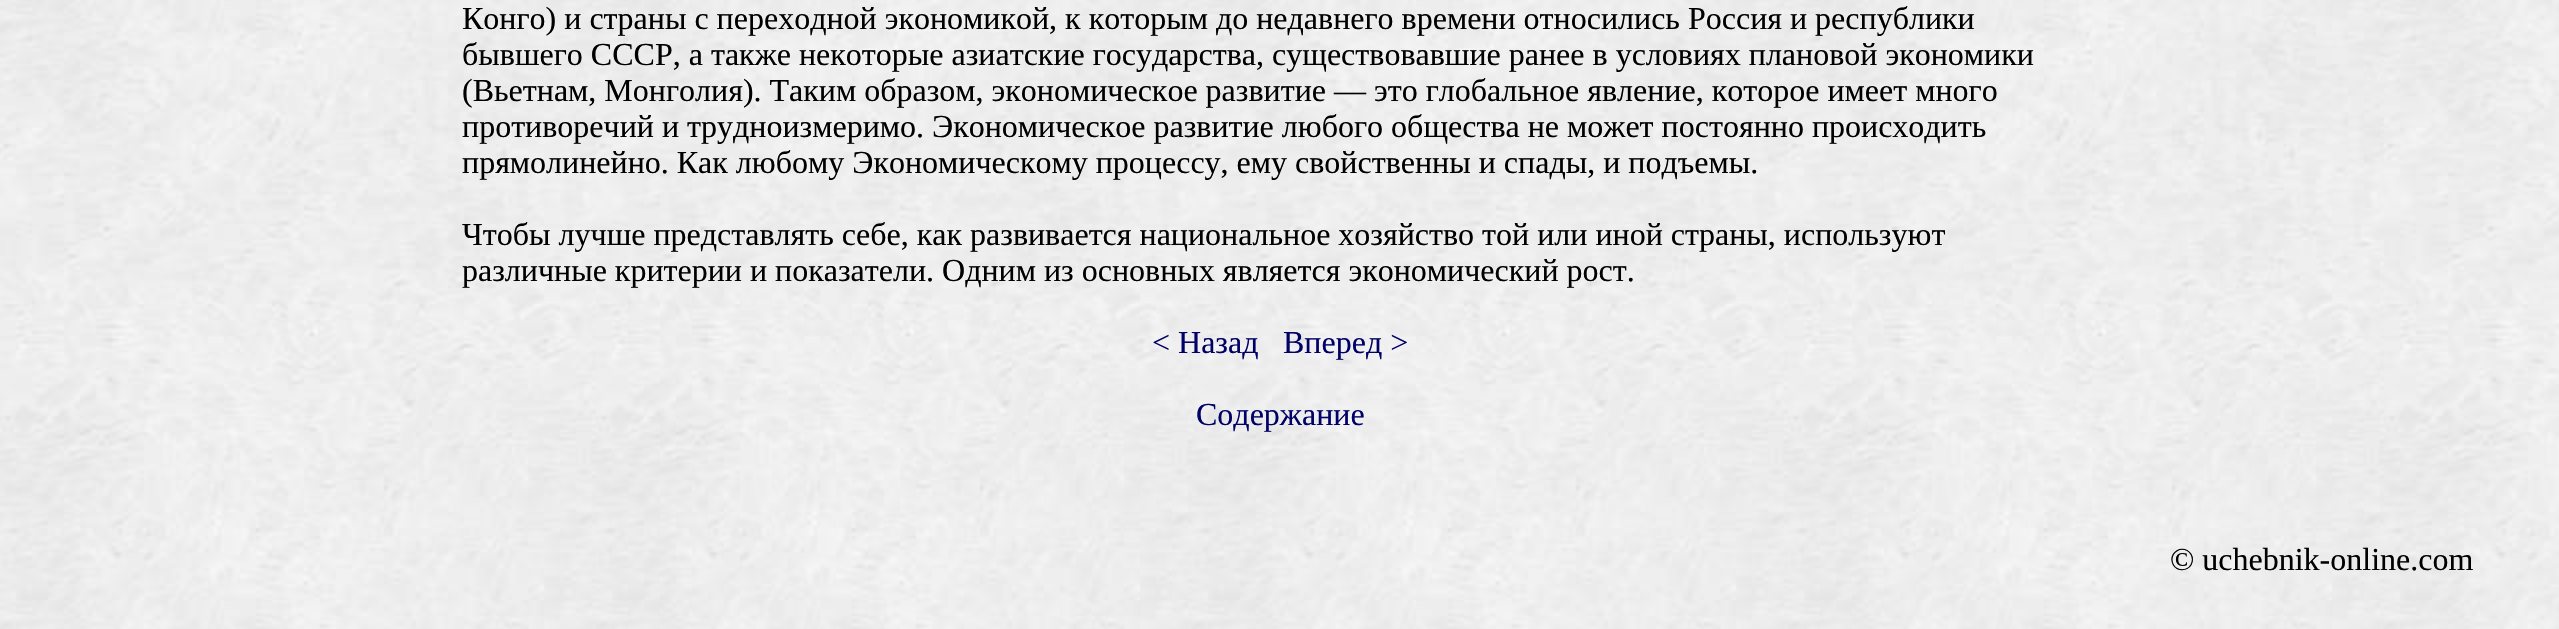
void draw(SkCanvas* canvas) {
	SkPaint fill;
	fill.setAntiAlias(true);
	auto makeFont = [&](const char* family, int weight, float size, bool italic = false) {
		SkFontStyle style(weight, SkFontStyle::kNormal_Width,
			italic ? SkFontStyle::kItalic_Slant : SkFontStyle::kUpright_Slant);
		SkFont result(fontMgr->matchFamilyStyle(family, style), size);
		result.setSubpixel(true);
		return result;
	};
	auto text = [&](const char* s, float x, float y, const SkFont& font) {
		canvas->drawString(s, x, y, font, fill);
	};
	auto picture = [&](const char* path, float l, float t, float r, float b) {
		auto image = SkImages::DeferredFromEncodedData(SkData::MakeFromFileName(path));
		canvas->drawImageRect(image, SkRect::MakeLTRB(l, t, r, b), SkSamplingOptions());
	};
	canvas->clear(0xFFFFFFFF);
	picture("image0.png", 0, 0, 2559, 629);
	auto font1 = makeFont("Liberation Serif", 400, 32);
	fill.setColor(0xFF000000);
	text("Конго) и страны с переходной экономикой, к которым до недавнего времени относились Россия и республики", 462, 29, font1);
	text("бывшего СССР, а также некоторые азиатские государства, существовавшие ранее в условиях плановой экономики", 462, 65, font1);
	text("(Вьетнам, Монголия). Таким образом, экономическое развитие — это глобальное явление, которое имеет много", 462, 101, font1);
	text("противоречий и трудноизмеримо. Экономическое развитие любого общества не может постоянно происходить", 462, 137, font1);
	text("прямолинейно. Как любому Экономическому процессу, ему свойственны и спады, и подъемы.", 462, 173, font1);
	text("Чтобы лучше представлять себе, как развивается национальное хозяйство той или иной страны, используют", 462, 245, font1);
	text("различные критерии и показатели. Одним из основных является экономический рост.", 462, 281, font1);
	fill.setColor(0xFF000066);
	text("< Назад", 1152, 353, font1);
	text("Вперед >", 1283, 353, font1);
	text("Содержание", 1196, 425, font1);
	fill.setColor(0xFF000000);
	text("© uchebnik-online.com", 2170, 570, font1);
}
